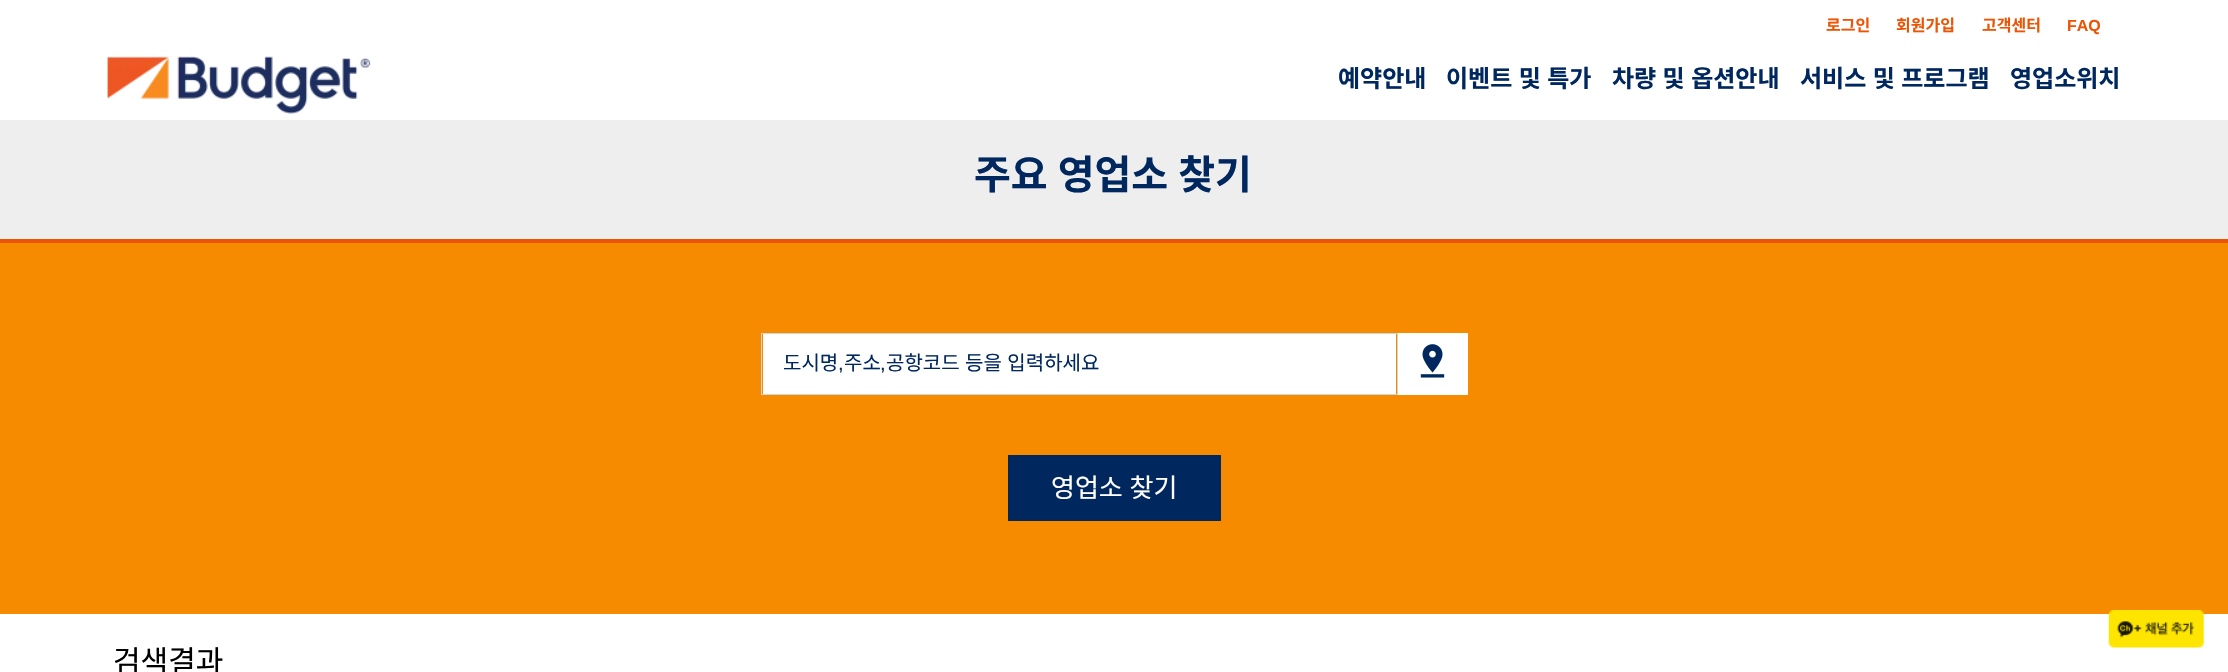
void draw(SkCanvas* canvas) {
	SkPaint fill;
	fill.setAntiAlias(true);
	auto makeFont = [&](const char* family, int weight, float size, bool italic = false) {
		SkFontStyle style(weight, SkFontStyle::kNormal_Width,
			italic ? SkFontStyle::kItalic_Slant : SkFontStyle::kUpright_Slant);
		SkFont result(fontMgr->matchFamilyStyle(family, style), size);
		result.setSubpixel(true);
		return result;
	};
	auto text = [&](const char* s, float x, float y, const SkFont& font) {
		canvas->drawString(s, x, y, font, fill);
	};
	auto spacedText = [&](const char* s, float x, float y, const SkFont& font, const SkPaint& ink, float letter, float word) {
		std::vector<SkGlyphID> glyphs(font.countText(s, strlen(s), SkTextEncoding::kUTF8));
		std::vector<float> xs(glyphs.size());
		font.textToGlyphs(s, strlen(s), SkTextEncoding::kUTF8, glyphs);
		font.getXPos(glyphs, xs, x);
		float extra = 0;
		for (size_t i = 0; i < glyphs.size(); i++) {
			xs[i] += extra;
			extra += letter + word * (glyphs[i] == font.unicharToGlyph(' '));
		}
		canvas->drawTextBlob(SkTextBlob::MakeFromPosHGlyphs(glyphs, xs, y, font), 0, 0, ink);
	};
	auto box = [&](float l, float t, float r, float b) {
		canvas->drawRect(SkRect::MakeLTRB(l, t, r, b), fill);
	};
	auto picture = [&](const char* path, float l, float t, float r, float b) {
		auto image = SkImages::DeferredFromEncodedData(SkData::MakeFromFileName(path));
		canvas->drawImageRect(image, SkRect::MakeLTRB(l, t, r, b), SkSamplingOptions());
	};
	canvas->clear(0xFFFFFFFF);
	picture("image0.png", 107, 56, 371, 114);
	fill.setColor(0xFFEEEEEE);
	box(0, 120, 2228, 239);
	fill.setColor(0xFFF78B00);
	box(0, 243, 2228, 614);
	fill.setColor(0xFFED5505);
	box(0, 239, 2228, 243);
	fill.setColor(0xFFFFFFFF);
	box(763, 334, 1396, 394);
	fill.setStyle(SkPaint::kStroke_Style);
	fill.setStrokeWidth(1);
	fill.setColor(0xFFCED4DA);
	canvas->drawRect(SkRect::MakeLTRB(761.5f, 333.5f, 1397.5f, 394.5f), fill);
	fill.setStyle(SkPaint::kFill_Style);
	fill.setColor(0xFFFFFFFF);
	box(1398, 333, 1468, 395);
	picture("image1.png", 1420, 344, 1445, 378);
	fill.setColor(0xFF00285F);
	box(1008, 455, 1221, 521);
	picture("image2.png", 2108, 610, 2204, 648);
	auto font1 = makeFont("Noto Sans KR", 700, 16);
	fill.setColor(0xFFED5505);
	text("로그인", 1826, 31, font1);
	text("회원가입", 1896, 31, font1);
	text("고객센터", 1982, 31, font1);
	auto font2 = makeFont("Liberation Sans", 700, 16);
	text("FAQ", 2067, 31, font2);
	auto font3 = makeFont("Noto Sans KR", 700, 24);
	fill.setColor(0xFF00285F);
	text("예약안내", 1338, 87, font3);
	spacedText("이벤트 및 특가", 1446, 87, font3, fill, 0, 1);
	spacedText("차량 및 옵션안내", 1612, 87, font3, fill, 0, 1);
	spacedText("서비스 및 프로그램", 1800, 87, font3, fill, 0, 1);
	text("영업소위치", 2010, 87, font3);
	auto font4 = makeFont("Noto Sans KR", 700, 40);
	spacedText("주요 영업소 찾기", 974, 189, font4, fill, 0, 1);
	auto font5 = makeFont("Noto Sans KR", 400, 20);
	text("도시명", 783, 370, font5);
	auto font6 = makeFont("Liberation Sans", 400, 20);
	text(",", 838, 370, font6);
	text("주소", 844, 370, font5);
	text(",", 880, 370, font6);
	spacedText("공항코드 등을 입력하세요", 886, 370, font5, fill, 0, 1);
	auto font7 = makeFont("Noto Sans KR", 400, 26);
	fill.setColor(0xFFFFFFFF);
	spacedText("영업소 찾기", 1051, 497, font7, fill, 0, 1);
	auto font8 = makeFont("Noto Sans KR", 400, 30);
	fill.setColor(0xFF000000);
	text("검색결과", 113, 672, font8);
}
